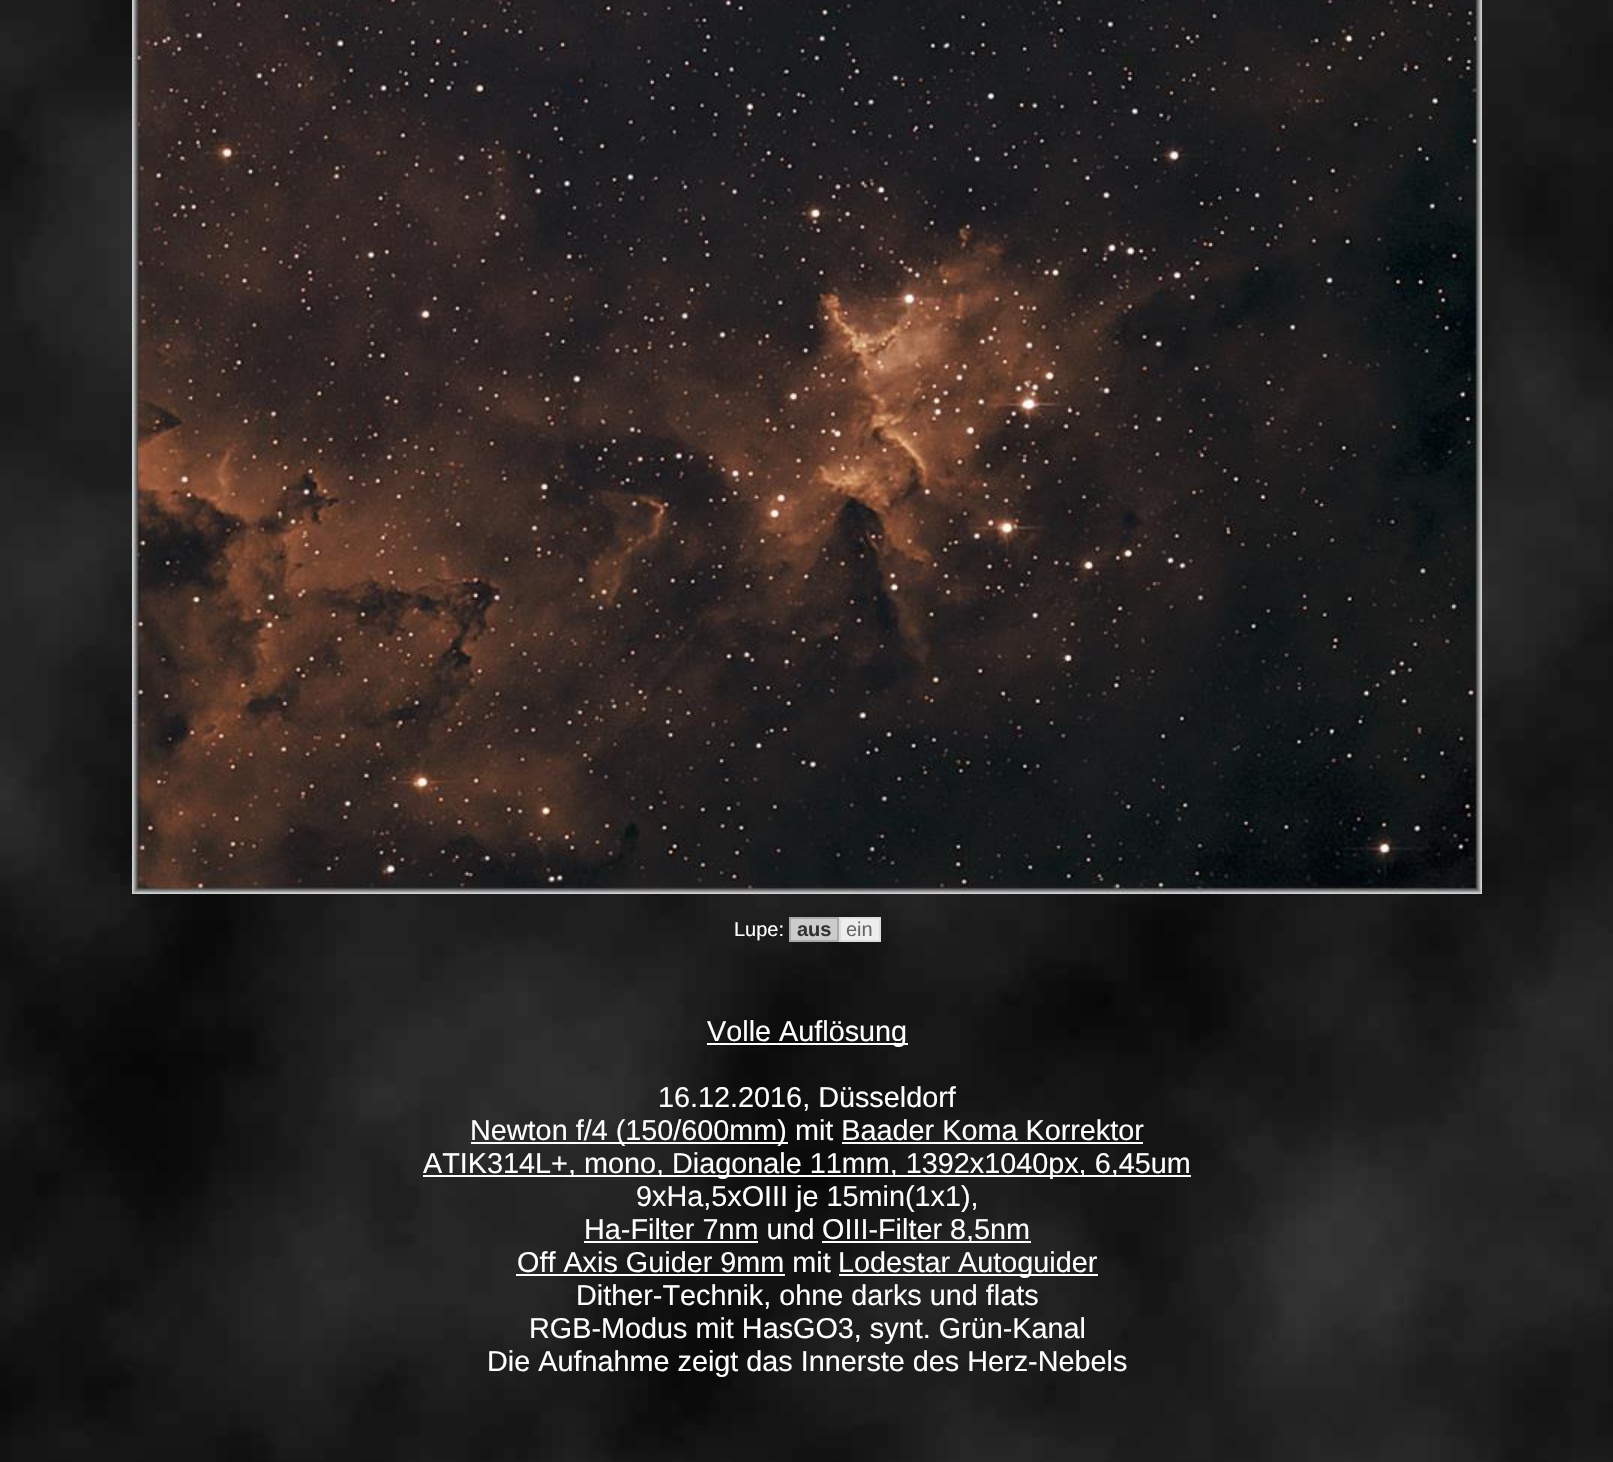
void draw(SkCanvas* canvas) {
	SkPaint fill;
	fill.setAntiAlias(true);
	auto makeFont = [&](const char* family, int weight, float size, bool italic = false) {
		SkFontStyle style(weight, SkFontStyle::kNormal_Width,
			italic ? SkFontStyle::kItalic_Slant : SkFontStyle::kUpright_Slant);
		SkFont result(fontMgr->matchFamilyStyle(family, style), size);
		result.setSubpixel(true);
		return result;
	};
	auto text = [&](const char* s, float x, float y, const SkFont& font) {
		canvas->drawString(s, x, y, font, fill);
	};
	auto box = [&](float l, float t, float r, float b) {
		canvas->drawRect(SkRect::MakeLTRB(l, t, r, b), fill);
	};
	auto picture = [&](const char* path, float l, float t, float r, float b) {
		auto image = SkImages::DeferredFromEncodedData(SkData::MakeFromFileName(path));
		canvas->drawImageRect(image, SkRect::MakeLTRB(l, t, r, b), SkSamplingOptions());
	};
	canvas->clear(0xFFFFFFFF);
	picture("image0.png", 0, 0, 1613, 1462);
	picture("image1.png", 132, 0, 1482, 894);
	fill.setColor(0xFFCCCCCC);
	canvas->drawRect(SkRect::MakeLTRB(790, 918, 838, 941), fill);
	fill.setStyle(SkPaint::kStroke_Style);
	fill.setStrokeWidth(2);
	fill.setColor(0xFFAAAAAA);
	canvas->drawRect(SkRect::MakeLTRB(790, 918, 838, 941), fill);
	fill.setStyle(SkPaint::kFill_Style);
	fill.setColor(0xFFEEEEEE);
	canvas->drawRect(SkRect::MakeLTRB(840, 918, 880, 941), fill);
	fill.setStyle(SkPaint::kStroke_Style);
	fill.setColor(0xFFDDDDDD);
	canvas->drawRect(SkRect::MakeLTRB(840, 918, 880, 941), fill);
	fill.setStyle(SkPaint::kFill_Style);
	fill.setColor(0xFFFFFFFF);
	box(707, 1043, 908, 1045);
	box(471, 1142, 788, 1144);
	box(842, 1142, 1143, 1144);
	box(423, 1175, 1191, 1177);
	box(584, 1241, 758, 1243);
	box(822, 1241, 1031, 1243);
	box(516, 1274, 785, 1276);
	box(839, 1274, 1098, 1276);
	auto font1 = makeFont("Liberation Sans", 400, 20);
	text("Lupe:", 734, 936, font1);
	auto font2 = makeFont("Liberation Sans", 700, 20);
	fill.setColor(0xFF333333);
	text("aus", 797, 936, font2);
	fill.setColor(0xFF666666);
	text("ein", 846, 936, font1);
	auto font3 = makeFont("Liberation Sans", 400, 28.8f);
	fill.setColor(0xFFFFFFFF);
	text("Volle Auflösung", 707, 1041, font3);
	text("16.12.2016, Düsseldorf", 658, 1107, font3);
	text("Newton f/4 (150/600mm) mit Baader Koma Korrektor", 470, 1140, font3);
	text("ATIK314L+, mono, Diagonale 11mm, 1392x1040px, 6,45um", 423, 1173, font3);
	text("9xHa,5xOIII je 15min(1x1),", 636, 1206, font3);
	text("Ha-Filter 7nm und", 584, 1239, font3);
	text("OIII-Filter 8,5nm", 822, 1239, font3);
	text("Off Axis Guider 9mm mit", 517, 1272, font3);
	text("Lodestar Autoguider", 838, 1272, font3);
	text("Dither-Technik, ohne darks und flats", 576, 1305, font3);
	text("RGB-Modus mit HasGO3, synt. Grün-Kanal", 529, 1338, font3);
	text("Die Aufnahme zeigt das Innerste des Herz-Nebels", 487, 1371, font3);
}
